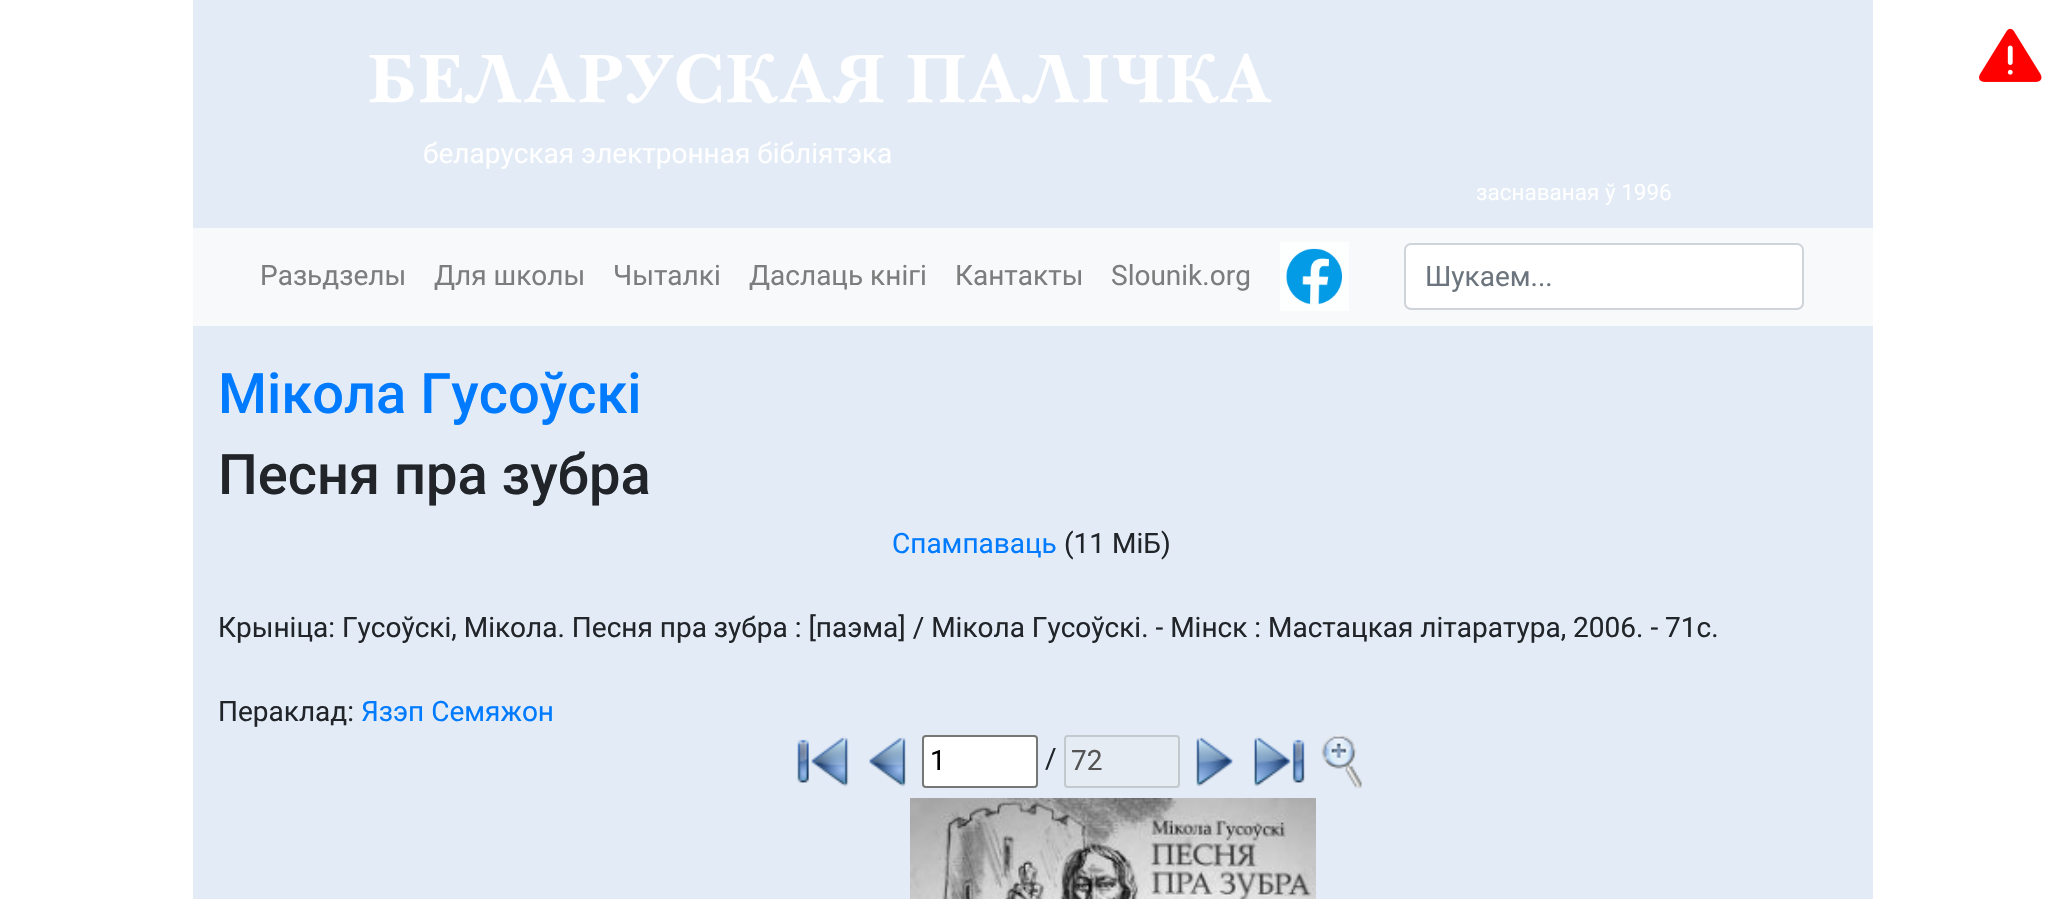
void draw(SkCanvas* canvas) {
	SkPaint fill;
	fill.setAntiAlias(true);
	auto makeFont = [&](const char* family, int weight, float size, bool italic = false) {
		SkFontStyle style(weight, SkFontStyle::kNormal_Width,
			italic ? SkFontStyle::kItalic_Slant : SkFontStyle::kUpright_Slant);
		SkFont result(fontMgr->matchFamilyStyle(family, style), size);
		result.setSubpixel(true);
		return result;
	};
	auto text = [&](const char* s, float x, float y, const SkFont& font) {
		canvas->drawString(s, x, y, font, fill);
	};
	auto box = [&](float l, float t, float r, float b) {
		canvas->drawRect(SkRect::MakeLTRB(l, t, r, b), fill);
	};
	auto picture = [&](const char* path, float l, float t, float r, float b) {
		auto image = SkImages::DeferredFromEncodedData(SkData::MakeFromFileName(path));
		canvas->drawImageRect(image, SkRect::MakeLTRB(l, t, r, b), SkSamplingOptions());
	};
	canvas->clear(0xFFFFFFFF);
	fill.setColor(0xFFE2EBF6);
	box(193, 0, 1873, 228);
	picture("image0.png", 1979, 28, 2042, 82);
	box(193, 326, 1873, 899);
	fill.setColor(0xFFF8F9FA);
	box(193, 228, 1873, 326);
	picture("image1.png", 1280, 242, 1349, 311);
	fill.setColor(0xFFFFFFFF);
	canvas->drawRoundRect(SkRect::MakeLTRB(1405, 244, 1803, 309), 6, 6, fill);
	fill.setStyle(SkPaint::kStroke_Style);
	fill.setStrokeWidth(2);
	fill.setColor(0xFFCED4DA);
	canvas->drawRoundRect(SkRect::MakeLTRB(1405, 244, 1803, 309), 6, 6, fill);
	picture("image2.png", 797, 736, 849, 787);
	picture("image3.png", 869, 737, 906, 787);
	fill.setStyle(SkPaint::kFill_Style);
	fill.setColor(0xFFFFFFFF);
	canvas->drawRoundRect(SkRect::MakeLTRB(923, 736, 1037, 787), 3, 3, fill);
	fill.setStyle(SkPaint::kStroke_Style);
	fill.setColor(0xFF767676);
	canvas->drawRoundRect(SkRect::MakeLTRB(923, 736, 1037, 787), 3, 3, fill);
	fill.setStyle(SkPaint::kFill_Style);
	fill.setColor(0xFFE6ECF4);
	canvas->drawRoundRect(SkRect::MakeLTRB(1065, 736, 1179, 787), 3, 3, fill);
	fill.setStyle(SkPaint::kStroke_Style);
	fill.setColor(0xFFC4C9CE);
	canvas->drawRoundRect(SkRect::MakeLTRB(1065, 736, 1179, 787), 3, 3, fill);
	picture("image4.png", 1196, 736, 1233, 787);
	picture("image5.png", 1254, 736, 1305, 787);
	picture("image6.png", 1321, 735, 1362, 789);
	picture("image7.png", 910, 798, 1316, 899);
	auto font1 = makeFont("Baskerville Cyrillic", 700, 70);
	fill.setStyle(SkPaint::kFill_Style);
	fill.setColor(0xFFFFFFFF);
	text("БЕЛАРУСКАЯ ПАЛІЧКА", 367, 102, font1);
	auto font2 = makeFont("Roboto", 400, 28);
	text("беларуская электронная бібліятэка", 423, 163, font2);
	auto font3 = makeFont("Roboto", 400, 22.5f);
	text("заснаваная ў 1996", 1476, 200, font3);
	fill.setColor(0xFF7C7D7D);
	text("Разьдзелы", 260, 285, font2);
	text("Для школы", 434, 285, font2);
	text("Чыталкі", 613, 285, font2);
	text("Даслаць кнігі", 749, 285, font2);
	text("Кантакты", 955, 285, font2);
	text("Slounik.org", 1111, 285, font2);
	fill.setColor(0xFF6C757D);
	text("Шукаем...", 1425, 286, font2);
	auto font4 = makeFont("Roboto", 500, 56);
	fill.setColor(0xFF007BFF);
	text("Мікола Гусоўскі", 218, 413, font4);
	fill.setColor(0xFF212529);
	text("Песня пра зубра", 218, 494, font4);
	fill.setColor(0xFF007BFF);
	text("Спампаваць", 892, 553, font2);
	fill.setColor(0xFF212529);
	text("(11 МіБ)", 1064, 553, font2);
	text("Крыніца: Гусоўскі, Мікола. Песня пра зубра : [паэма] / Мікола Гусоўскі. - Мінск : Мастацкая літаратура, 2006. - 71с.", 218, 637, font2);
	text("Пераклад:", 218, 721, font2);
	fill.setColor(0xFF007BFF);
	text("Язэп Семяжон", 361, 721, font2);
	fill.setColor(0xFF000000);
	text("1", 930, 770, font2);
	fill.setColor(0xFF212529);
	text("/", 1045, 768, font2);
	fill.setColor(0xFF545454);
	text("72", 1071, 770, font2);
}
